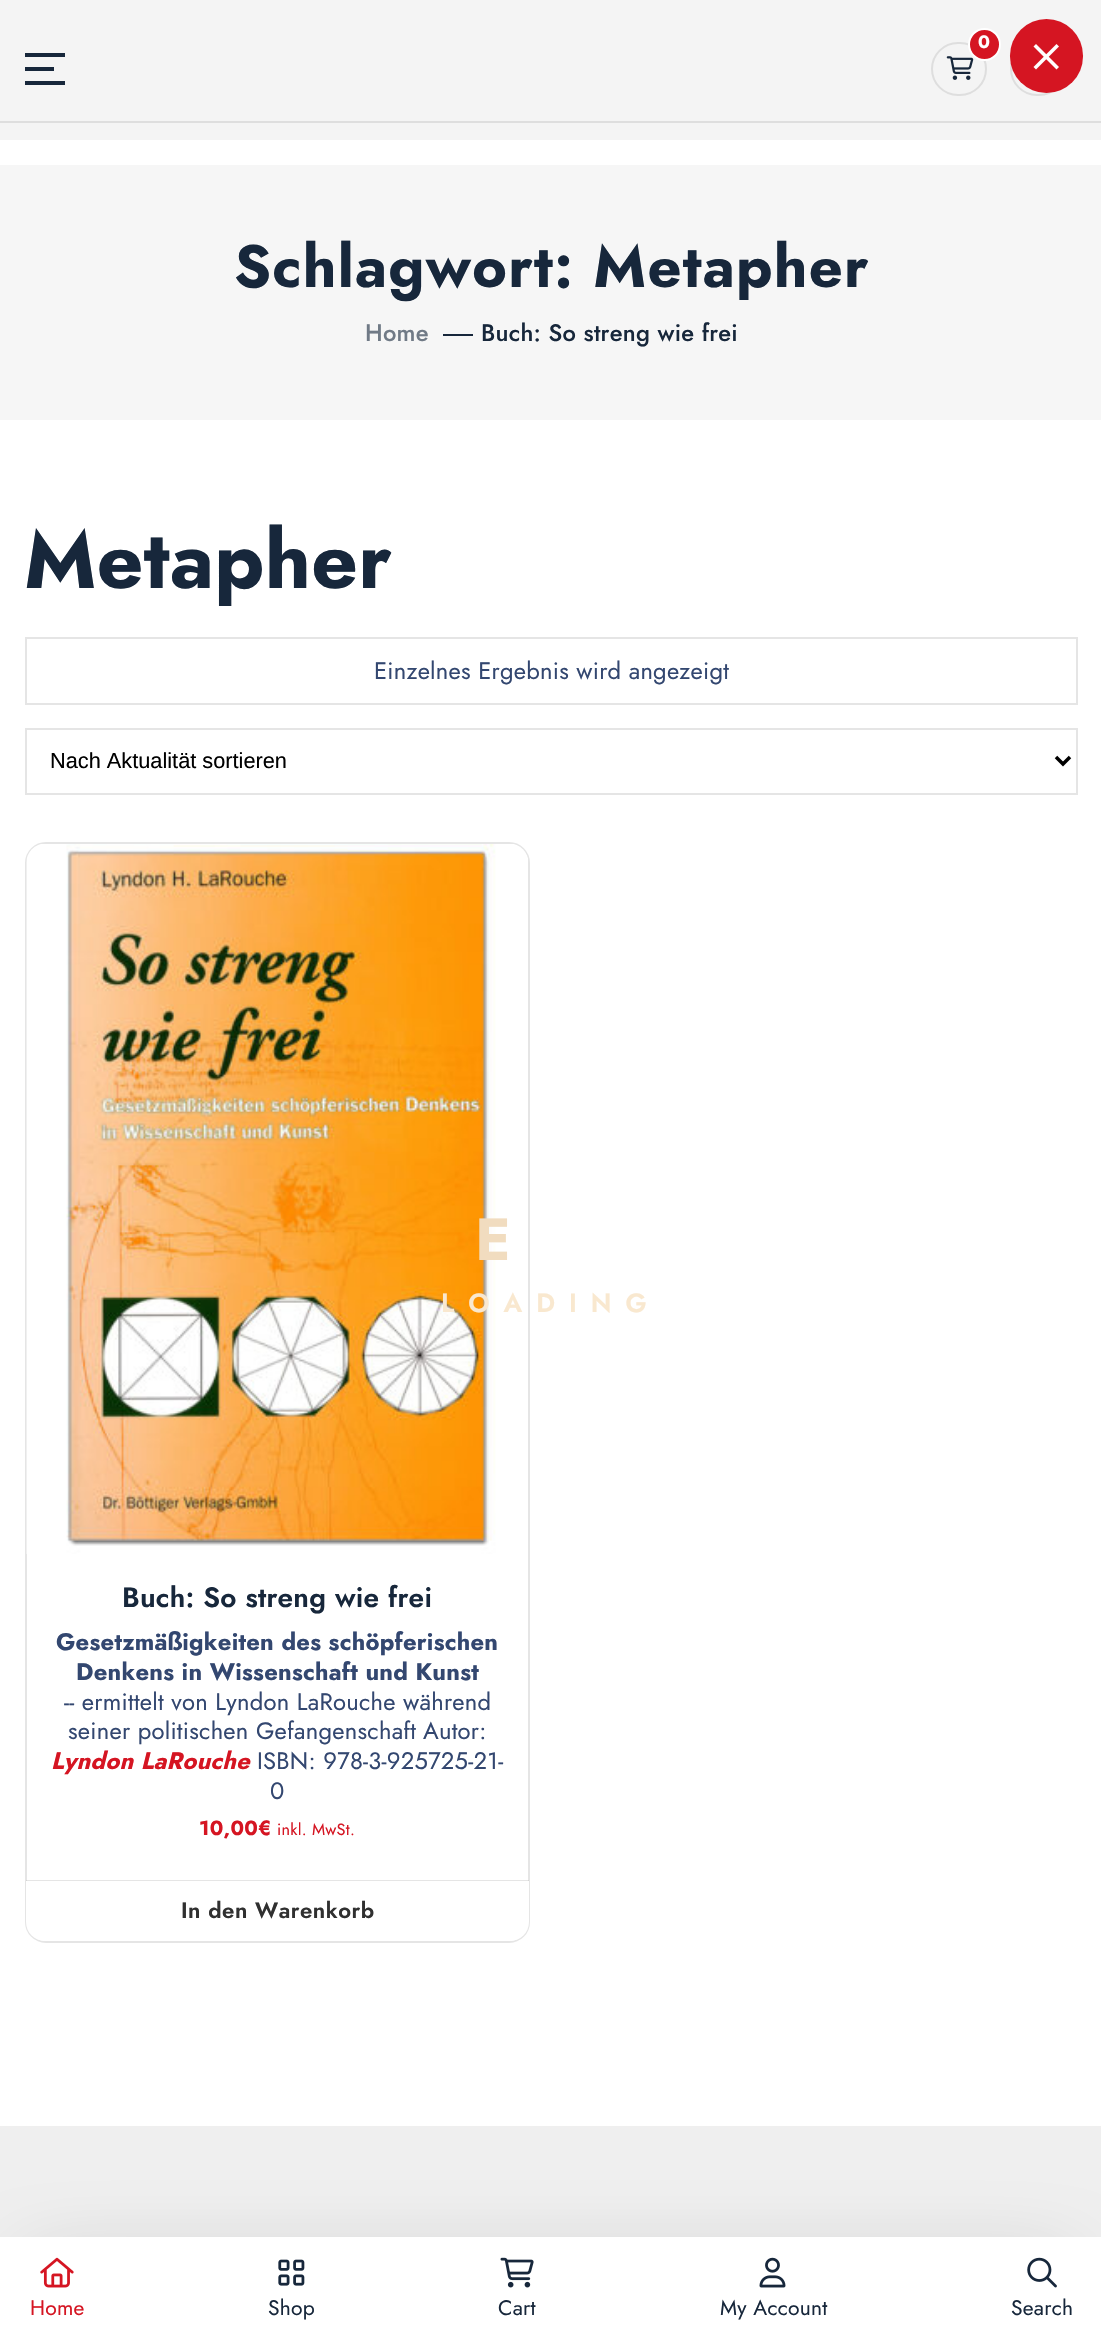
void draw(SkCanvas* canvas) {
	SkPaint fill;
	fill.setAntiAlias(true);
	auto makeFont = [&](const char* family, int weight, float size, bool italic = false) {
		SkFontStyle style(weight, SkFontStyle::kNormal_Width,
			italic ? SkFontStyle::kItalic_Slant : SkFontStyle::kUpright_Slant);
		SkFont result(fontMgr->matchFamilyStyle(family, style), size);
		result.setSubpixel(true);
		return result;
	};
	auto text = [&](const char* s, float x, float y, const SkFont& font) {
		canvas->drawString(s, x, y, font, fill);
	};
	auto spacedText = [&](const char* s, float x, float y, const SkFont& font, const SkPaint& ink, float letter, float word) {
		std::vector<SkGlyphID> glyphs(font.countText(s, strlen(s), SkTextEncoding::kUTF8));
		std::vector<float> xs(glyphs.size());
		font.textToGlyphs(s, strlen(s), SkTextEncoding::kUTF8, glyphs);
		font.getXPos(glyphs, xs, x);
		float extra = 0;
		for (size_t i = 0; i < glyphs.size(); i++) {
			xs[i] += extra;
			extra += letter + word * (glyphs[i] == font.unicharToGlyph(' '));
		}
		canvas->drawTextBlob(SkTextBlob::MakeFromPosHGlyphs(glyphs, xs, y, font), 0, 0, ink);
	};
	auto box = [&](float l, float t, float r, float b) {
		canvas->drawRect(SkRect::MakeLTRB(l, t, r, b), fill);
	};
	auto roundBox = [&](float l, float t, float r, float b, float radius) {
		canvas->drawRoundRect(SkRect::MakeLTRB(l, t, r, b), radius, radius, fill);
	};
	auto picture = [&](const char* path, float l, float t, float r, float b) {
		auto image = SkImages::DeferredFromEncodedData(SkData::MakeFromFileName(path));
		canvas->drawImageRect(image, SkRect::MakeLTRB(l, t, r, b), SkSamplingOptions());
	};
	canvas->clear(0xFFFFFFFF);
	fill.setColor(0xFFF4F4F4);
	box(0, 0, 1101, 140);
	fill.setColor(0xFFDEDEDE);
	box(0, 121, 1101, 123);
	picture("image0.png", 946, 56, 974, 80);
	fill.setStyle(SkPaint::kStroke_Style);
	fill.setStrokeWidth(2);
	canvas->drawRoundRect(SkRect::MakeLTRB(932, 43, 986, 95), 26, 26, fill);
	fill.setStyle(SkPaint::kFill_Style);
	fill.setColor(0xFFD51522);
	canvas->drawCircle(984.5f, 44.5f, 15.5f, fill);
	fill.setStyle(SkPaint::kStroke_Style);
	fill.setColor(0xFFFFFFFF);
	canvas->drawCircle(984.5f, 44.5f, 15.5f, fill);
	fill.setColor(0xFFDEDEDE);
	canvas->drawRoundRect(SkRect::MakeLTRB(1011, 43, 1065, 95), 26, 26, fill);
	fill.setStyle(SkPaint::kFill_Style);
	fill.setColor(0xFF17273B);
	box(25, 53, 65, 57);
	box(25, 67, 54, 71);
	box(25, 81, 65, 85);
	fill.setColor(0xFFF6F6F6);
	box(0, 165, 1101, 420);
	fill.setColor(0xFF17273B);
	box(443, 334, 473, 336);
	fill.setStyle(SkPaint::kStroke_Style);
	fill.setColor(0xFFE5E5E5);
	canvas->drawRect(SkRect::MakeLTRB(26, 638, 1077, 704), fill);
	canvas->drawRect(SkRect::MakeLTRB(26, 729, 1077, 794), fill);
	fill.setStrokeWidth(3.5f);
	fill.setColor(0xFF000000);
	canvas->drawPath(SkPathBuilder().moveTo(1056, 757).lineTo(1063, 764).lineTo(1070, 757).detach(), fill);
	fill.setStrokeWidth(2);
	fill.setColor(0xFFE5E5E5);
	canvas->drawRoundRect(SkRect::MakeLTRB(26, 843, 529, 1942), 20, 20, fill);
	picture("image1.png", 26, 844, 528, 1554);
	fill.setStyle(SkPaint::kFill_Style);
	fill.setColor(0x66BDBDBD);
	box(26, 1880, 529, 1881);
	fill.setColor(0xFFFFFFFF);
	canvas->drawPath(SkPathBuilder().moveTo(26, 1881).lineTo(529, 1881).lineTo(529, 1922).cubicTo(529, 1932.5f, 520.5f, 1941, 510, 1941).lineTo(45, 1941).cubicTo(34.5f, 1941, 26, 1932.5f, 26, 1922).close().detach(), fill);
	fill.setColor(0xFFD51522);
	roundBox(1010, 19, 1083, 93, 36.5f);
	fill.setColor(0xFFFFFFFF);
	canvas->drawPath(SkPathBuilder().moveTo(1033.5f, 67).lineTo(1056.5f, 44).lineTo(1059, 46.5f).lineTo(1036, 69.5f).close().detach(), fill);
	canvas->drawPath(SkPathBuilder().moveTo(1056.5f, 69.5f).lineTo(1033.5f, 46.5f).lineTo(1036, 44).lineTo(1059, 67).close().detach(), fill);
	fill.setColor(0xFFEFEFEF);
	box(0, 2126, 1101, 2237);
	fill.setColor(0x4D000000);
	fill.setMaskFilter(SkMaskFilter::MakeBlur(kNormal_SkBlurStyle, 39.5f));
	canvas->drawRect(SkRect::MakeLTRB(32, 2275, 1064, 2308), fill);
	fill.setMaskFilter(nullptr);
	fill.setColor(0xFFFFFFFF);
	box(0, 2237, 1101, 2339);
	picture("image2.png", 40, 2257, 74, 2288);
	picture("image3.png", 278, 2259, 305, 2286);
	picture("image4.png", 500, 2257, 534, 2288);
	picture("image5.png", 759, 2257, 786, 2288);
	picture("image6.png", 1027, 2257, 1057, 2288);
	auto font1 = makeFont("Jost", 700, 18);
	spacedText("0", 978, 48, font1, fill, 0.25f, 0);
	auto font2 = makeFont("Jost", 700, 59.4f);
	fill.setColor(0xFF17273B);
	spacedText("Schlagwort: Metapher", 234, 287, font2, fill, 1.2f, 0);
	auto font3 = makeFont("Jost", 500, 23.75f);
	fill.setColor(0xFF707A86);
	spacedText("Home", 365, 341, font3, fill, 0.25f, 0);
	fill.setColor(0xFF17273B);
	spacedText("Buch: So streng wie frei", 481, 341, font3, fill, 0.25f, 0);
	auto font4 = makeFont("Jost", 700, 81.5f);
	spacedText("Metapher", 24, 588, font4, fill, 0.25f, 0);
	auto font5 = makeFont("Jost", 400, 23.75f);
	fill.setColor(0xFF334770);
	spacedText("Einzelnes Ergebnis wird angezeigt", 374, 679, font5, fill, 0.25f, 0);
	auto font6 = makeFont("Liberation Sans", 400, 21.75f);
	fill.setColor(0xFF000000);
	text("Nach Aktualität sortieren", 50, 768, font6);
	auto font7 = makeFont("Jost", 600, 28);
	fill.setColor(0xFF17273B);
	spacedText("Buch: So streng wie frei", 122, 1607, font7, fill, 0.25f, 0);
	auto font8 = makeFont("Jost", 700, 23.75f);
	fill.setColor(0xFF334770);
	spacedText("Gesetzmäßigkeiten des schöpferischen", 56, 1650, font8, fill, 0.25f, 0);
	spacedText("Denkens in Wissenschaft und Kunst", 76, 1680, font8, fill, 0.25f, 0);
	spacedText("-- ermittelt von Lyndon LaRouche während", 64, 1710, font5, fill, 0.25f, 0);
	spacedText("seiner politischen Gefangenschaft", 68, 1739, font5, fill, 0.25f, 0);
	spacedText("Autor:", 423, 1739, font5, fill, 0.25f, 0);
	auto font9 = makeFont("Jost", 700, 23.75f, true);
	fill.setColor(0xFFD51522);
	spacedText("Lyndon LaRouche", 51, 1769, font9, fill, 0.25f, 0);
	fill.setColor(0xFF334770);
	spacedText("ISBN: 978-3-925725-21-", 257, 1769, font5, fill, 0.25f, 0);
	spacedText("0", 270, 1799, font5, fill, 0.25f, 0);
	auto font10 = makeFont("Jost", 700, 20.5f);
	fill.setColor(0xFFD51522);
	spacedText("10,00€", 199, 1835, font10, fill, 0.25f, 0);
	auto font11 = makeFont("Jost", 400, 16.25f);
	spacedText("inkl. MwSt.", 277, 1835, font11, fill, 0.25f, 0);
	auto font12 = makeFont("Jost", 600, 22.25f);
	fill.setColor(0xFF303030);
	spacedText("In den Warenkorb", 181, 1918, font12, fill, 0.5f, 0);
	fill.setColor(0xFFF1DCBF);
	spacedText("E", 475, 1260, font2, fill, 0.25f, 0);
	auto font13 = makeFont("Jost", 600, 26.25f);
	fill.setColor(0xFFF9E8CF);
	spacedText("LOADING", 441, 1312, font13, fill, 14, 0);
	auto font14 = makeFont("Jost", 400, 21);
	fill.setColor(0xFFD51522);
	spacedText("Home", 30, 2315, font14, fill, 0.25f, 0);
	fill.setColor(0xFF17273B);
	spacedText("Shop", 268, 2315, font14, fill, 0.25f, 0);
	spacedText("Cart", 498, 2315, font14, fill, 0.25f, 0);
	spacedText("My Account", 720, 2315, font14, fill, 0.25f, 0);
	spacedText("Search", 1011, 2315, font14, fill, 0.25f, 0);
}
